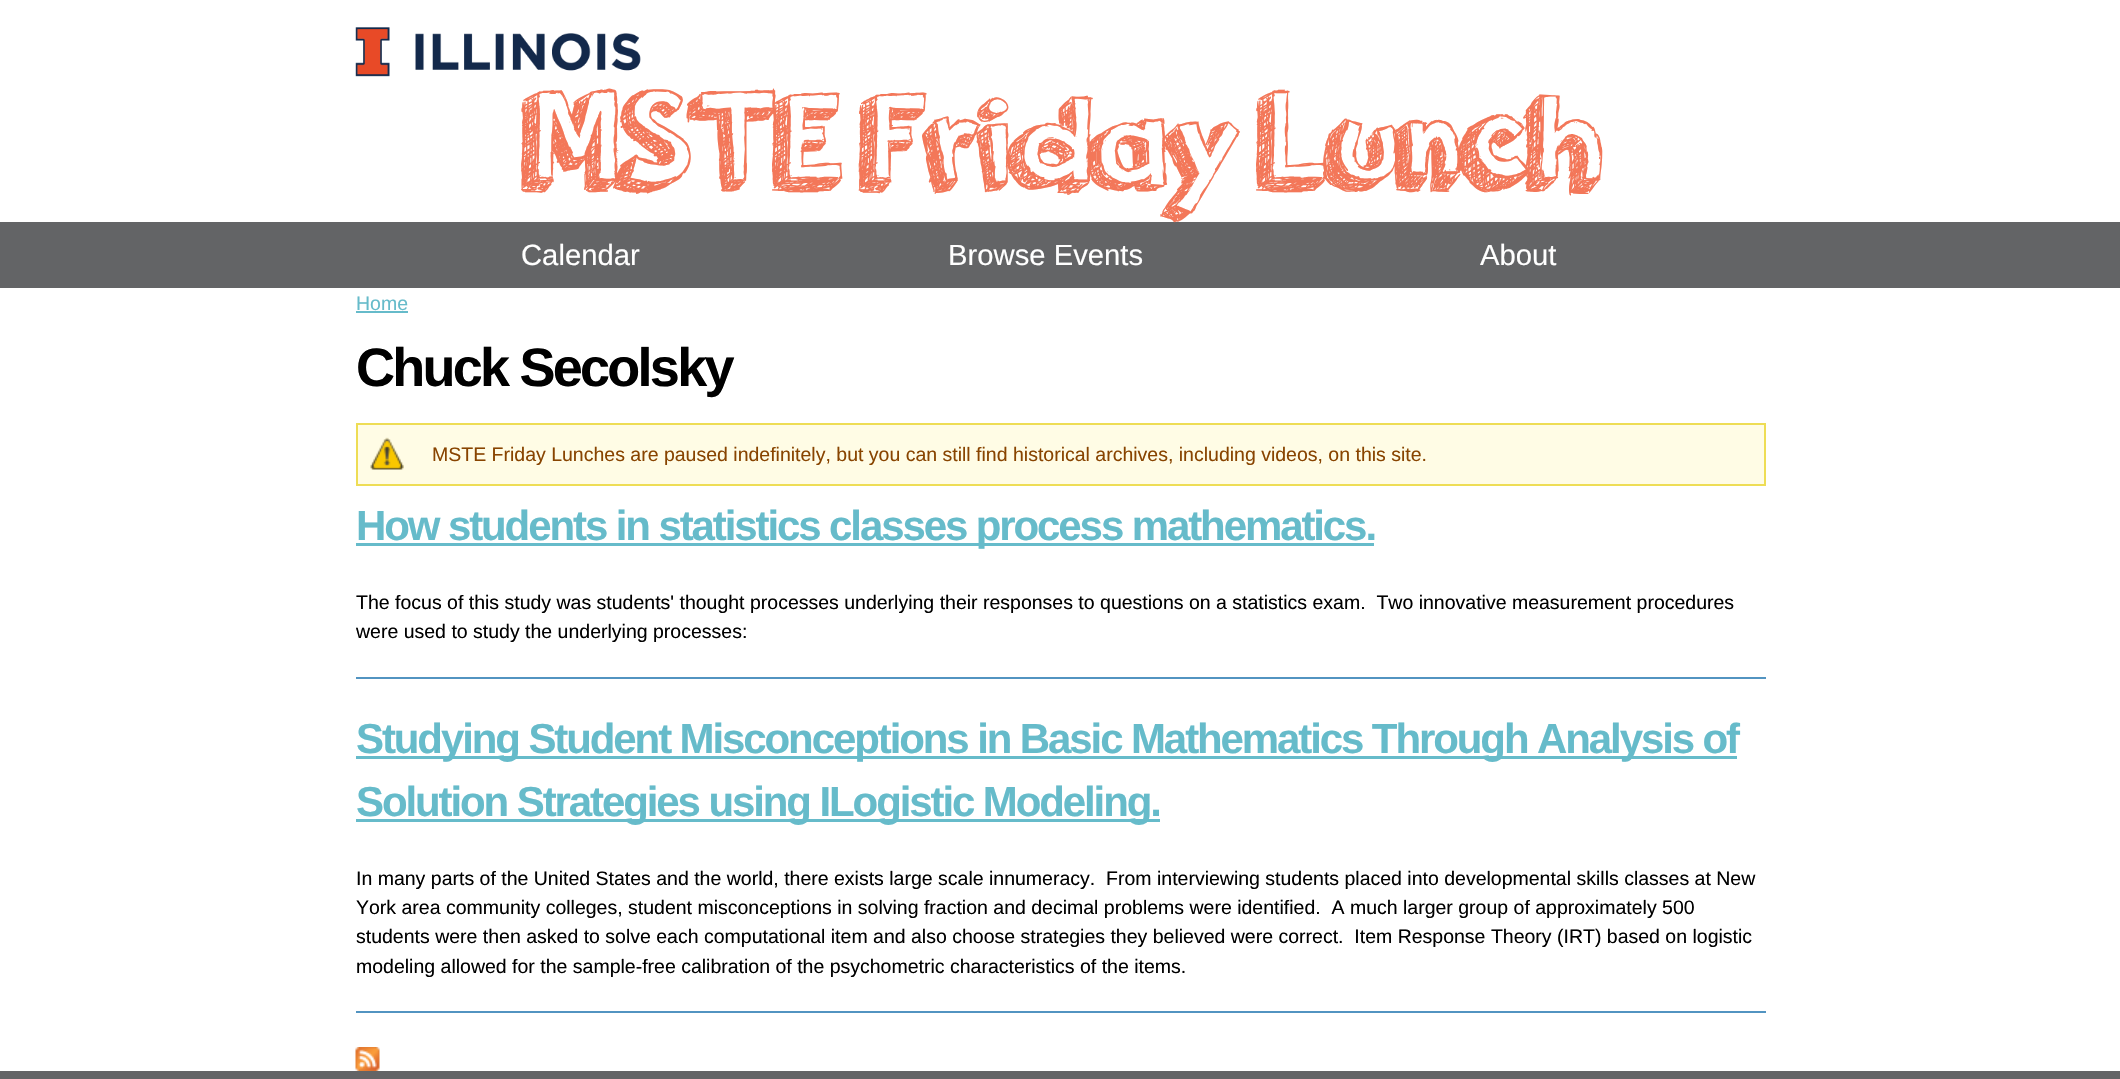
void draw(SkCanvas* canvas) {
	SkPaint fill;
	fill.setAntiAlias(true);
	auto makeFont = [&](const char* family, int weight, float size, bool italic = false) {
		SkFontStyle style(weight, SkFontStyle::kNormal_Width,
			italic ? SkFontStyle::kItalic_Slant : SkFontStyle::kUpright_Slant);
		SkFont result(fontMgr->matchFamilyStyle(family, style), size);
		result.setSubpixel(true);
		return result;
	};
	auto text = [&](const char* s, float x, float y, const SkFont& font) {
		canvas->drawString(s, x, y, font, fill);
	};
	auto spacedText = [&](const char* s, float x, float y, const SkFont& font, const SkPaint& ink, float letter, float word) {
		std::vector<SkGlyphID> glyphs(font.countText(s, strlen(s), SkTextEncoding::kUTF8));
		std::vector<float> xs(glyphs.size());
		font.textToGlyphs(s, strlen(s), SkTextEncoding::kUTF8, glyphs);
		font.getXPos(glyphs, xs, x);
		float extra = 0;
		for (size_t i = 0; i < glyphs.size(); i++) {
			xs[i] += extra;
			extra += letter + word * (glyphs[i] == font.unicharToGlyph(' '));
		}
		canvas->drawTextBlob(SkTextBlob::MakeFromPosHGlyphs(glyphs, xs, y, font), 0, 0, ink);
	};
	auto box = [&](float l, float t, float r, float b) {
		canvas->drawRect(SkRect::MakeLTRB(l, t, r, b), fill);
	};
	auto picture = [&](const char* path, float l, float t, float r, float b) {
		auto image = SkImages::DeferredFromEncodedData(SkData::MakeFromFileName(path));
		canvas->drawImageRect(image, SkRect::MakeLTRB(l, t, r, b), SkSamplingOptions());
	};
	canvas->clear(0xFFFFFFFF);
	picture("image0.png", 355, 27, 641, 77);
	fill.setColor(0xFF636466);
	box(0, 222, 2120, 288);
	fill.setColor(0xFF66BBCA);
	box(356, 311, 408, 313);
	fill.setColor(0xFFFFFCE5);
	box(358, 425, 1764, 484);
	picture("image1.png", 370, 437, 404, 470);
	fill.setStyle(SkPaint::kStroke_Style);
	fill.setStrokeWidth(2);
	fill.setColor(0xFFEEDD55);
	canvas->drawRect(SkRect::MakeLTRB(357, 424, 1765, 485), fill);
	fill.setStyle(SkPaint::kFill_Style);
	fill.setColor(0xFF66BBCA);
	box(356, 543, 1374, 546);
	fill.setColor(0xFF5294C1);
	box(356, 677, 1766, 679);
	fill.setColor(0xFF66BBCA);
	box(356, 756, 1737, 759);
	box(356, 819, 1160, 822);
	fill.setColor(0xFF5294C1);
	box(356, 1011, 1766, 1013);
	picture("image2.png", 355, 1047, 380, 1071);
	fill.setColor(0xFF636466);
	box(0, 1071, 2120, 1079);
	auto font1 = makeFont("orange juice", 400, 140.5f);
	fill.setColor(0xFFF37759);
	spacedText("MSTE Friday Lunch", 522, 192, font1, fill, -2.75f, 0);
	auto font2 = makeFont("Liberation Sans", 400, 29.25f);
	fill.setColor(0xFFFFFFFF);
	text("Calendar", 521, 265, font2);
	text("Browse Events", 948, 265, font2);
	text("About", 1480, 265, font2);
	auto font3 = makeFont("Liberation Sans", 400, 19.5f);
	fill.setColor(0xFF66BBCA);
	text("Home", 356, 310, font3);
	auto font4 = makeFont("Liberation Sans", 700, 54);
	fill.setColor(0xFF000000);
	spacedText("Chuck Secolsky", 356, 386, font4, fill, -2.75f, 0);
	fill.setColor(0xFF884400);
	text("MSTE Friday Lunches are paused indefinitely, but you can still find historical archives, including videos, on this site.", 432, 461, font3);
	auto font5 = makeFont("Liberation Sans", 700, 42);
	fill.setColor(0xFF66BBCA);
	spacedText("How students in statistics classes process mathematics.", 356, 540, font5, fill, -2.1f, 0);
	fill.setColor(0xFF000000);
	text("The focus of this study was students' thought processes underlying their responses to questions on a statistics exam.  Two innovative measurement procedures", 356, 609, font3);
	text("were used to study the underlying processes:", 356, 638, font3);
	fill.setColor(0xFF66BBCA);
	spacedText("Studying Student Misconceptions in Basic Mathematics Through Analysis of", 356, 753, font5, fill, -2.1f, 0);
	spacedText("Solution Strategies using ILogistic Modeling.", 356, 816, font5, fill, -2.1f, 0);
	fill.setColor(0xFF000000);
	text("In many parts of the United States and the world, there exists large scale innumeracy.  From interviewing students placed into developmental skills classes at New", 356, 885, font3);
	text("York area community colleges, student misconceptions in solving fraction and decimal problems were identified.  A much larger group of approximately 500", 356, 914, font3);
	text("students were then asked to solve each computational item and also choose strategies they believed were correct.  Item Response Theory (IRT) based on logistic", 356, 943, font3);
	text("modeling allowed for the sample-free calibration of the psychometric characteristics of the items.", 356, 973, font3);
}
